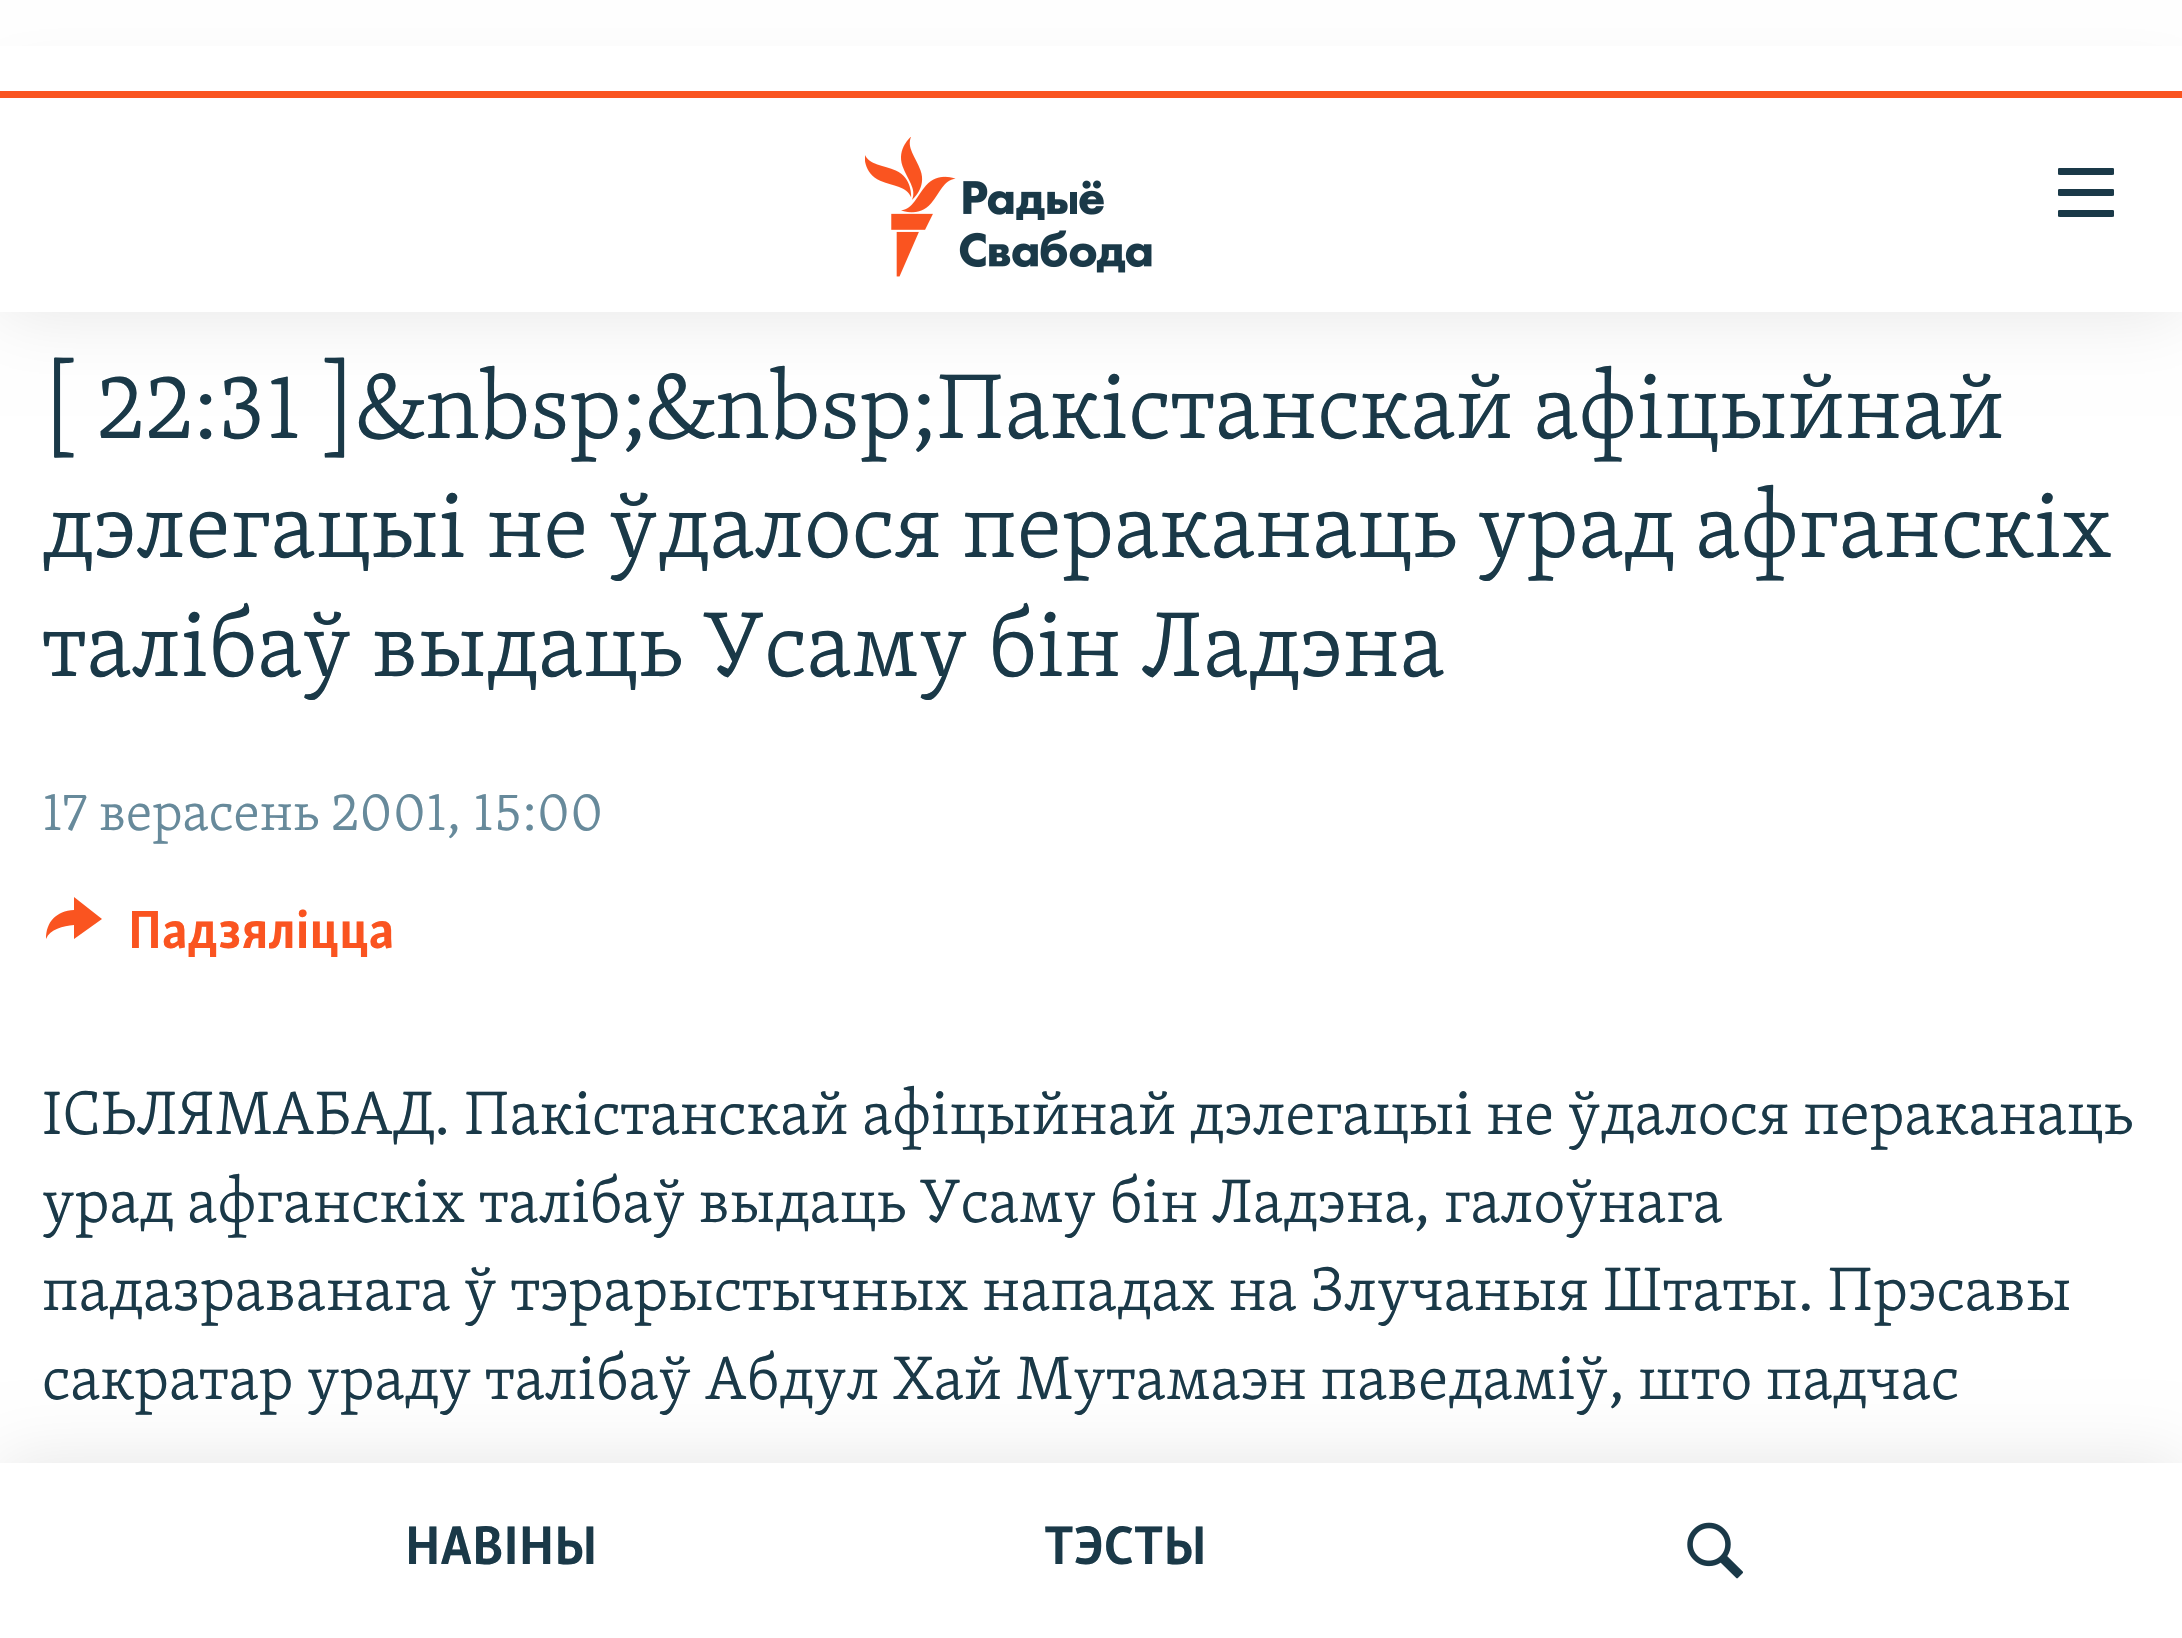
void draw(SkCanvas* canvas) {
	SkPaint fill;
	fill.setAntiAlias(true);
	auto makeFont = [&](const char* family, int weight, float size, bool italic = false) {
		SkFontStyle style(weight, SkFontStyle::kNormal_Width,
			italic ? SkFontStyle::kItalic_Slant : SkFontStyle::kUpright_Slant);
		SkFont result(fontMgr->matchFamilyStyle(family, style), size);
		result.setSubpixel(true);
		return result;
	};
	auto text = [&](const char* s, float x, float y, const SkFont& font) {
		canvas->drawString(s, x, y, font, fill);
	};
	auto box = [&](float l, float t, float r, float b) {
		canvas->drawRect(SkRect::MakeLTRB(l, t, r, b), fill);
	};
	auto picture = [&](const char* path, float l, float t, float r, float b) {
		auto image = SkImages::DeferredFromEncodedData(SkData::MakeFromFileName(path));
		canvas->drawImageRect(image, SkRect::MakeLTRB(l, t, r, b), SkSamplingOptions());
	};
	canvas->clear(0xFFFFFFFF);
	fill.setColor(0x1A000000);
	fill.setMaskFilter(SkMaskFilter::MakeBlur(kNormal_SkBlurStyle, 35));
	canvas->drawRect(SkRect::MakeLTRB(0, 91, 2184, 312), fill);
	fill.setMaskFilter(nullptr);
	fill.setColor(0xFFFFFFFF);
	box(0, 46, 2182, 91);
	fill.setColor(0xFFFA5420);
	canvas->drawPath(SkPathBuilder().moveTo(46, 939).cubicTo(46, 922, 56, 911, 74, 910).lineTo(74, 897).lineTo(102, 919).lineTo(74, 939).lineTo(74, 925).cubicTo(63, 926, 50, 929, 46, 939).close().detach(), fill);
	fill.setColor(0xFFFFFFFF);
	box(0, 98, 2182, 312);
	fill.setColor(0xFFFA5420);
	box(0, 91, 2182, 98);
	picture("image0.png", 865, 137, 1152, 277);
	picture("image1.png", 2058, 168, 2114, 217);
	fill.setColor(0x1A000000);
	fill.setMaskFilter(SkMaskFilter::MakeBlur(kNormal_SkBlurStyle, 35));
	canvas->drawRect(SkRect::MakeLTRB(0, 1463, 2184, 1638), fill);
	fill.setMaskFilter(nullptr);
	fill.setColor(0xFFFFFFFF);
	box(0, 1463, 2182, 1638);
	picture("image2.png", 1687, 1522, 1743, 1579);
	auto font1 = makeFont("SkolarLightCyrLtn", 300, 94.5f);
	fill.setColor(0xFF1A3948);
	text("[ 22:31 ]&nbsp;&nbsp;Пакістанскай афіцыйнай", 42, 438, font1);
	text("дэлегацыі не ўдалося пераканаць урад афганскіх", 42, 557, font1);
	text("талібаў выдаць Усаму бін Ладэна", 42, 676, font1);
	auto font2 = makeFont("SkolarLightCyrLtn", 300, 55.1f);
	fill.setColor(0xFF678A9B);
	text("17 верасень 2001, 15:00", 42, 830, font2);
	auto font3 = makeFont("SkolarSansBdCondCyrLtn", 700, 55.1f);
	fill.setColor(0xFFFA5420);
	text("Падзяліцца", 128, 948, font3);
	auto font4 = makeFont("SkolarLightCyrLtn", 300, 63);
	fill.setColor(0xFF1A3948);
	text("ІСЬЛЯМАБАД. Пакістанскай афіцыйнай дэлегацыі не ўдалося пераканаць", 42, 1134, font4);
	text("урад афганскіх талібаў выдаць Усаму бін Ладэна, галоўнага", 42, 1222, font4);
	text("падазраванага ў тэрарыстычных нападах на Злучаныя Штаты. Прэсавы", 42, 1310, font4);
	text("сакратар ураду талібаў Абдул Хай Мутамаэн паведаміў, што падчас", 42, 1399, font4);
	auto font5 = makeFont("SkolarSansBdCondCyrLtn", 700, 56);
	text("НАВІНЫ", 405, 1564, font5);
	text("ТЭСТЫ", 1044, 1564, font5);
}
